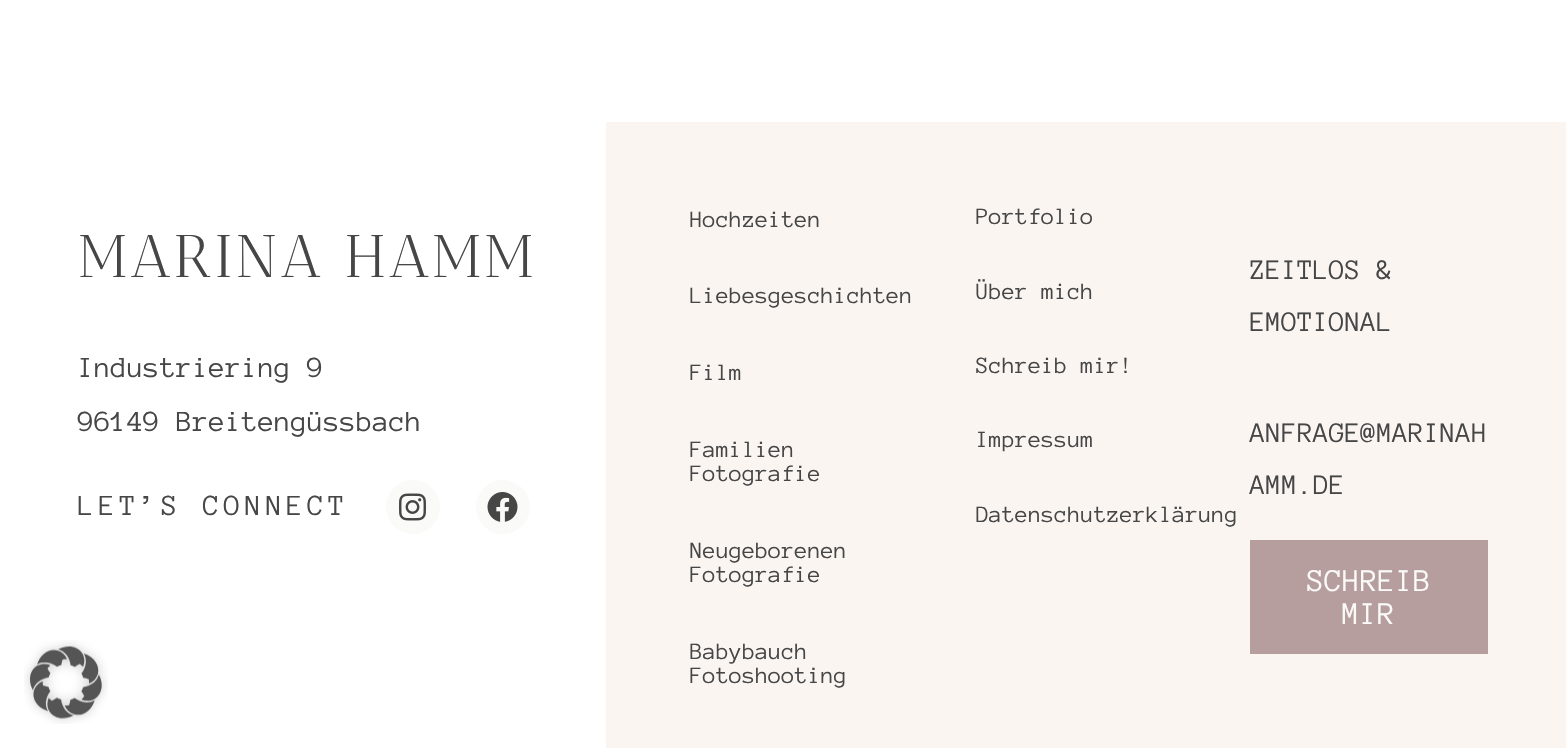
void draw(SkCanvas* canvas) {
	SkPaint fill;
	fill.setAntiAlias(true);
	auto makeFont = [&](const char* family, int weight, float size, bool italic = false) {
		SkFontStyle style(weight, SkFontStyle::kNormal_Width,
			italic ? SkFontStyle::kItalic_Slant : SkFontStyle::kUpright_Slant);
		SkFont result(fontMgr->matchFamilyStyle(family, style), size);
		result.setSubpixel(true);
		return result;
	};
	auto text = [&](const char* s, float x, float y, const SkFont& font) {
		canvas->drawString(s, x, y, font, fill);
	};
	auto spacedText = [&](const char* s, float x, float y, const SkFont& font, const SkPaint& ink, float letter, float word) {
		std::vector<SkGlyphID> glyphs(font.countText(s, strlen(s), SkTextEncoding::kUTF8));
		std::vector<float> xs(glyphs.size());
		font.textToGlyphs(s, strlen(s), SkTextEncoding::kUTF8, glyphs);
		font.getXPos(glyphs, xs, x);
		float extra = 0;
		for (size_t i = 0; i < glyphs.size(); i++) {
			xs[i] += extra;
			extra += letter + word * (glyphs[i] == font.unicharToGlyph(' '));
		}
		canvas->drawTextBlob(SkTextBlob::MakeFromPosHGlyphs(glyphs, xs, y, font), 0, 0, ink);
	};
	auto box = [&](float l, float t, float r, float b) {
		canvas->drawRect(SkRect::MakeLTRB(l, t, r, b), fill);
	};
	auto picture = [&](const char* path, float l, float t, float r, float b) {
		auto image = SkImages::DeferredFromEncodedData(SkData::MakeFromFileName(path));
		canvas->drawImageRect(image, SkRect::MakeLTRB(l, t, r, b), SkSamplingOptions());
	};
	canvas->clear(0xFFFFFFFF);
	picture("image0.png", 24, 640, 108, 724);
	fill.setColor(0xFFFAFAF8);
	canvas->drawCircle(413, 507, 27, fill);
	picture("image1.png", 399, 493, 426, 521);
	canvas->drawCircle(503, 507, 27, fill);
	picture("image2.png", 487, 492, 518, 522);
	fill.setColor(0xFFFBF5F1);
	box(606, 122, 1566, 748);
	fill.setColor(0xFFB79E9E);
	box(1250, 540, 1488, 654);
	auto font1 = makeFont("Antic Didone", 400, 60);
	fill.setColor(0xFF464646);
	spacedText("MARINA HAMM", 78, 277, font1, fill, 3, 0);
	auto font2 = makeFont("Anonymous Pro", 400, 30);
	text("Industriering 9", 78, 377, font2);
	text("96149 Breitengüssbach", 78, 431, font2);
	spacedText("LET’S CONNECT", 78, 515, font2, fill, 4.5f, 0);
	auto font3 = makeFont("Anonymous Pro", 400, 24);
	text("Hochzeiten", 690, 227, font3);
	text("Liebesgeschichten", 690, 303, font3);
	text("Film", 690, 380, font3);
	text("Familien", 690, 457, font3);
	text("Fotografie", 690, 481, font3);
	text("Neugeborenen", 690, 558, font3);
	text("Fotografie", 690, 582, font3);
	text("Babybauch", 690, 659, font3);
	text("Fotoshooting", 690, 683, font3);
	text("Portfolio", 976, 224, font3);
	text("Über mich", 976, 299, font3);
	text("Schreib mir!", 976, 373, font3);
	text("Impressum", 976, 447, font3);
	text("Datenschutzerklärung", 976, 522, font3);
	auto font4 = makeFont("Anonymous Pro", 400, 29);
	text("ZEITLOS &", 1250, 279, font4);
	text("EMOTIONAL", 1250, 331, font4);
	text("ANFRAGE@MARINAH", 1250, 442, font4);
	text("AMM.DE", 1250, 494, font4);
	auto font5 = makeFont("Anonymous Pro", 400, 32.5f);
	fill.setColor(0xFFFAFAF8);
	text("SCHREIB", 1307, 591, font5);
	text("MIR", 1342, 624, font5);
}
